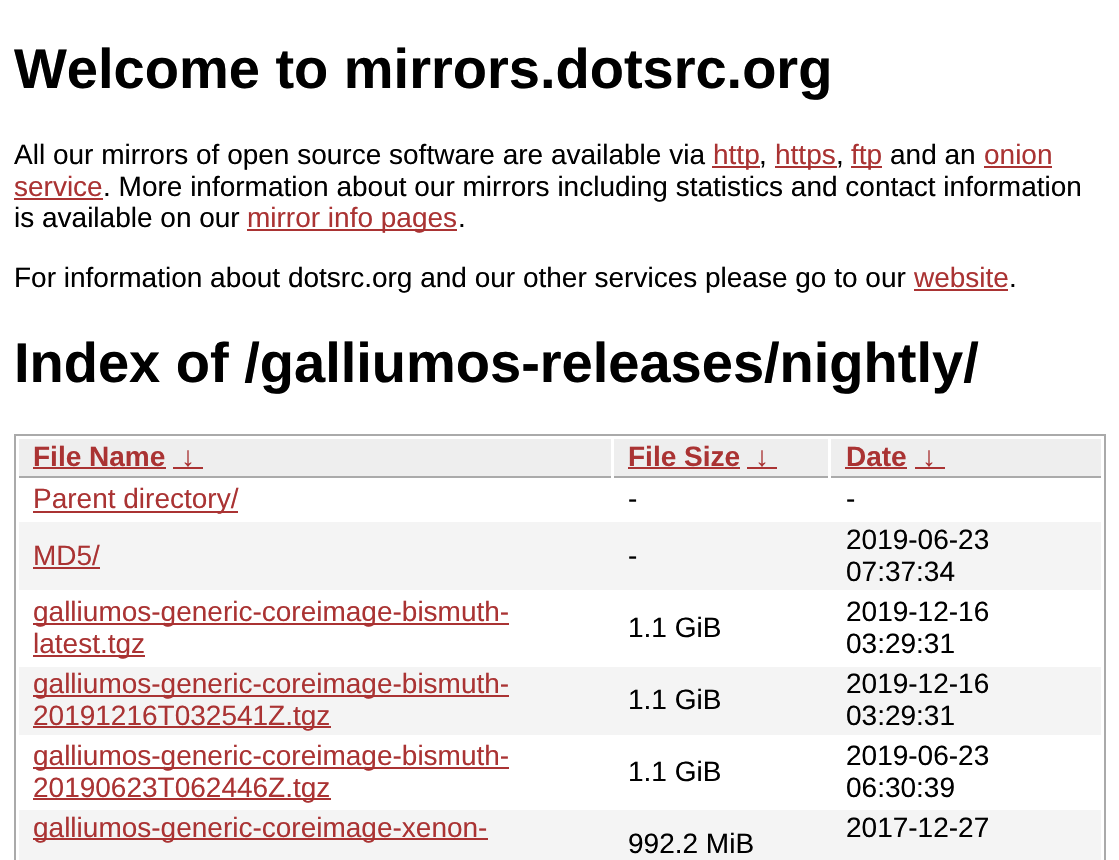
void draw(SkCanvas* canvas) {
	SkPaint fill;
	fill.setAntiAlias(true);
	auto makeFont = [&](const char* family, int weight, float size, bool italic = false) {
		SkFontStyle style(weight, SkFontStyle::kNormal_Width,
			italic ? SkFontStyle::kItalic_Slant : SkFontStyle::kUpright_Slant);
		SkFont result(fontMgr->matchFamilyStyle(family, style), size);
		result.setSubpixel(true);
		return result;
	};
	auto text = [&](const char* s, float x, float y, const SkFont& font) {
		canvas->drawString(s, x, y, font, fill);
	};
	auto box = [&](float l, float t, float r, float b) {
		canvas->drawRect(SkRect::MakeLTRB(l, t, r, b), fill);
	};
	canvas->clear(0xFFFFFFFF);
	fill.setColor(0xFFAA3333);
	box(712, 166, 760, 168);
	box(775, 166, 837, 168);
	box(851, 166, 882, 168);
	box(984, 166, 1052, 168);
	box(14, 198, 103, 200);
	box(247, 229, 457, 231);
	box(914, 289, 1008, 291);
	fill.setStyle(SkPaint::kStroke_Style);
	fill.setStrokeWidth(2);
	fill.setColor(0xFFAAAAAA);
	canvas->drawRect(SkRect::MakeLTRB(15, 435, 1105, 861), fill);
	fill.setStyle(SkPaint::kFill_Style);
	fill.setColor(0xFFEEEEEE);
	box(19, 439, 611, 476);
	fill.setColor(0xFFAAAAAA);
	box(19, 476, 611, 478);
	fill.setColor(0xFFAA3333);
	box(33, 467, 166, 469);
	box(173, 467, 203, 469);
	fill.setColor(0xFFEEEEEE);
	box(614, 439, 828, 476);
	fill.setColor(0xFFAAAAAA);
	box(614, 476, 828, 478);
	fill.setColor(0xFFAA3333);
	box(628, 467, 740, 469);
	box(747, 467, 777, 469);
	fill.setColor(0xFFEEEEEE);
	box(831, 439, 1101, 476);
	fill.setColor(0xFFAAAAAA);
	box(831, 476, 1101, 478);
	fill.setColor(0xFFAA3333);
	box(845, 467, 907, 469);
	box(915, 467, 945, 469);
	box(33, 511, 238, 513);
	fill.setColor(0xFFF4F4F4);
	box(19, 522, 1101, 590);
	fill.setColor(0xFFAA3333);
	box(33, 567, 100, 569);
	box(33, 623, 509, 625);
	box(33, 655, 145, 657);
	fill.setColor(0xFFF4F4F4);
	box(19, 667, 1101, 735);
	fill.setColor(0xFFAA3333);
	box(33, 695, 509, 697);
	box(33, 726, 331, 728);
	box(33, 767, 509, 769);
	box(33, 798, 331, 800);
	fill.setColor(0xFFF4F4F4);
	box(19, 810, 1101, 860);
	fill.setColor(0xFFAA3333);
	box(33, 838, 488, 840);
	auto font1 = makeFont("Liberation Sans", 700, 56);
	fill.setColor(0xFF000000);
	text("Welcome to mirrors.dotsrc.org", 14, 88, font1);
	auto font2 = makeFont("Liberation Sans", 400, 28);
	text("All our mirrors of open source software are available via", 14, 164, font2);
	fill.setColor(0xFFAA3333);
	text("http", 713, 164, font2);
	fill.setColor(0xFF000000);
	text(",", 759, 164, font2);
	fill.setColor(0xFFAA3333);
	text("https", 775, 164, font2);
	fill.setColor(0xFF000000);
	text(",", 836, 164, font2);
	fill.setColor(0xFFAA3333);
	text("ftp", 851, 164, font2);
	fill.setColor(0xFF000000);
	text("and an", 890, 164, font2);
	fill.setColor(0xFFAA3333);
	text("onion", 984, 164, font2);
	text("service", 14, 196, font2);
	fill.setColor(0xFF000000);
	text(". More information about our mirrors including statistics and contact information", 103, 196, font2);
	text("is available on our", 14, 227, font2);
	fill.setColor(0xFFAA3333);
	text("mirror info pages", 247, 227, font2);
	fill.setColor(0xFF000000);
	text(".", 458, 227, font2);
	text("For information about dotsrc.org and our other services please go to our", 14, 287, font2);
	fill.setColor(0xFFAA3333);
	text("website", 914, 287, font2);
	fill.setColor(0xFF000000);
	text(".", 1009, 287, font2);
	text("Index of /galliumos-releases/nightly/", 14, 382, font1);
	auto font3 = makeFont("Liberation Sans", 700, 28);
	fill.setColor(0xFFAA3333);
	text("File Name", 33, 466, font3);
	text("↓", 181, 466, font3);
	text("File Size", 628, 466, font3);
	text("↓", 755, 466, font3);
	text("Date", 846, 466, font3);
	text("↓", 922, 466, font3);
	text("Parent directory/", 33, 508, font2);
	fill.setColor(0xFF000000);
	text("-", 628, 508, font2);
	text("-", 846, 508, font2);
	fill.setColor(0xFFAA3333);
	text("MD5/", 33, 565, font2);
	fill.setColor(0xFF000000);
	text("-", 628, 565, font2);
	text("2019-06-23", 846, 549, font2);
	text("07:37:34", 846, 581, font2);
	fill.setColor(0xFFAA3333);
	text("galliumos-generic-coreimage-bismuth-", 33, 621, font2);
	text("latest.tgz", 33, 653, font2);
	fill.setColor(0xFF000000);
	text("1.1 GiB", 628, 637, font2);
	text("2019-12-16", 846, 621, font2);
	text("03:29:31", 846, 653, font2);
	fill.setColor(0xFFAA3333);
	text("galliumos-generic-coreimage-bismuth-", 33, 693, font2);
	text("20191216T032541Z.tgz", 33, 725, font2);
	fill.setColor(0xFF000000);
	text("1.1 GiB", 628, 709, font2);
	text("2019-12-16", 846, 693, font2);
	text("03:29:31", 846, 725, font2);
	fill.setColor(0xFFAA3333);
	text("galliumos-generic-coreimage-bismuth-", 33, 765, font2);
	text("20190623T062446Z.tgz", 33, 797, font2);
	fill.setColor(0xFF000000);
	text("1.1 GiB", 628, 781, font2);
	text("2019-06-23", 846, 765, font2);
	text("06:30:39", 846, 797, font2);
	fill.setColor(0xFFAA3333);
	text("galliumos-generic-coreimage-xenon-", 33, 837, font2);
	fill.setColor(0xFF000000);
	text("2017-12-27", 846, 837, font2);
	text("992.2 MiB", 628, 853, font2);
}
